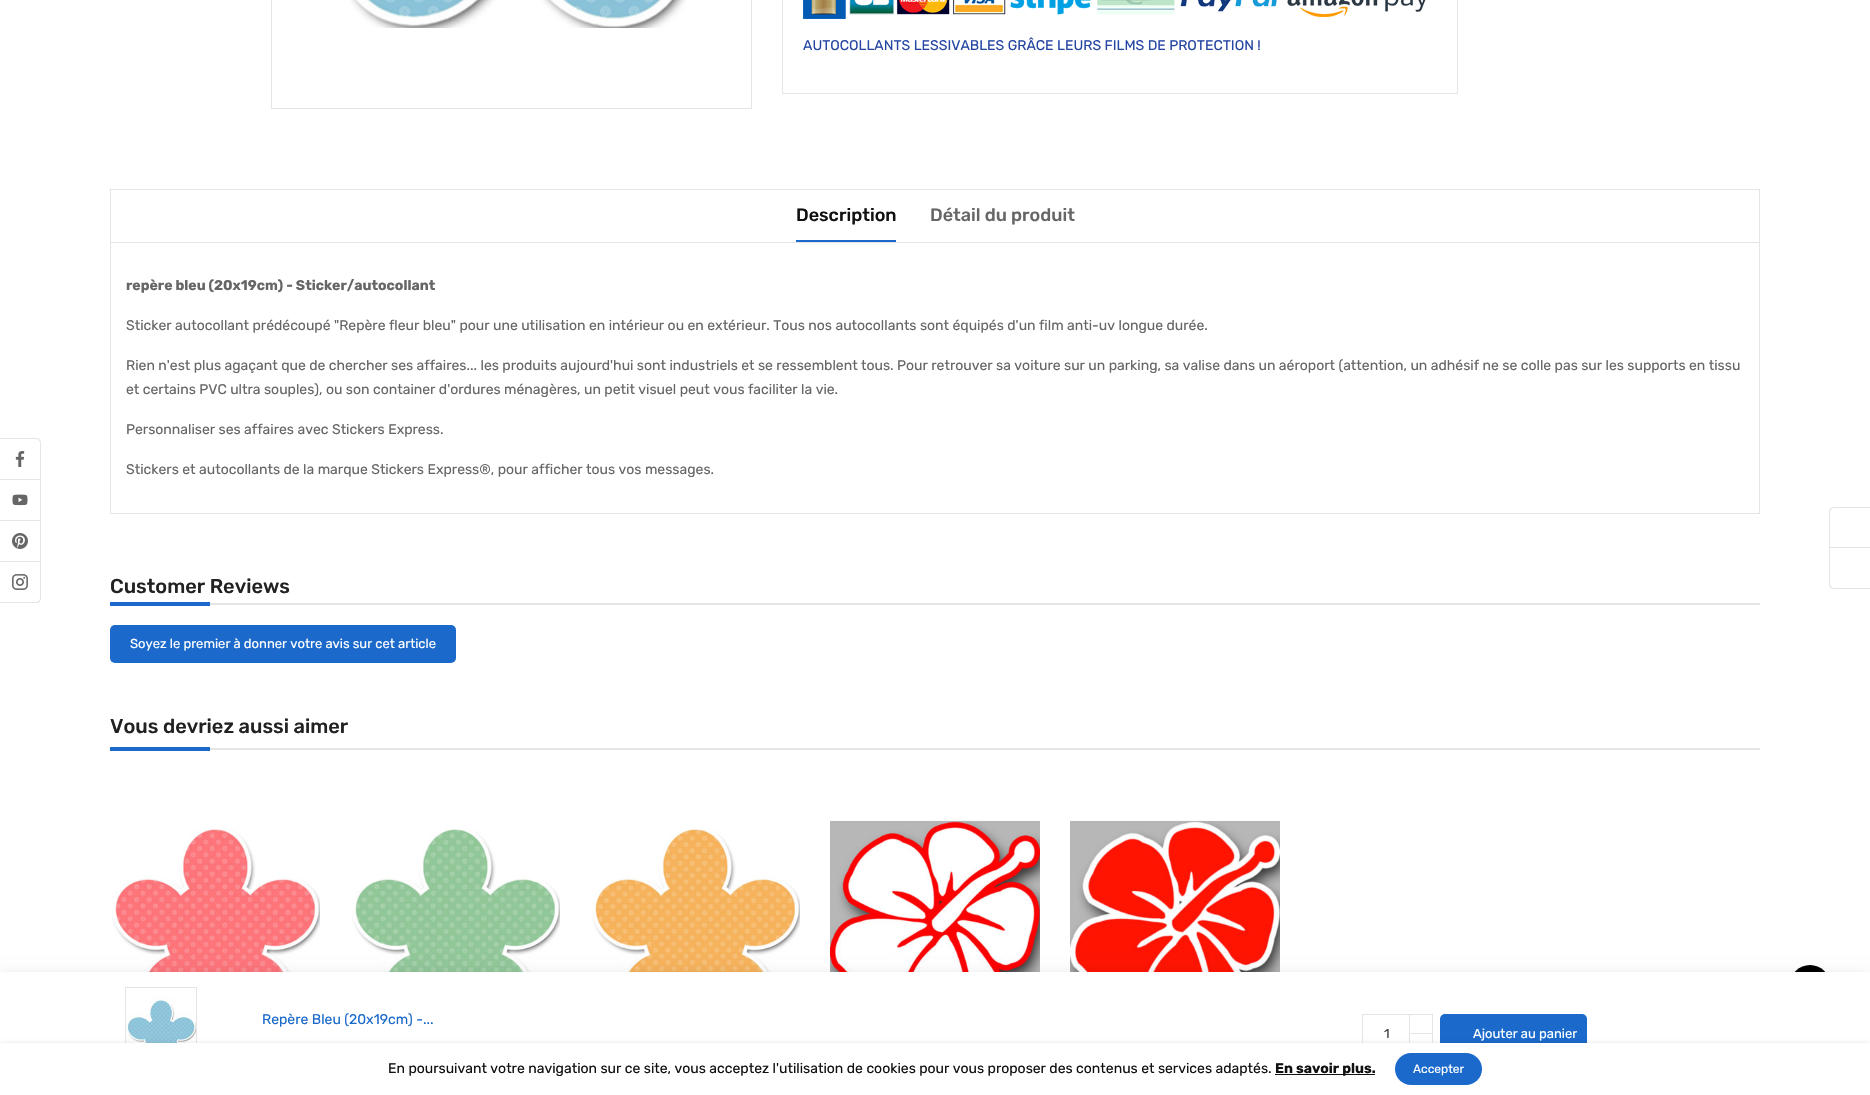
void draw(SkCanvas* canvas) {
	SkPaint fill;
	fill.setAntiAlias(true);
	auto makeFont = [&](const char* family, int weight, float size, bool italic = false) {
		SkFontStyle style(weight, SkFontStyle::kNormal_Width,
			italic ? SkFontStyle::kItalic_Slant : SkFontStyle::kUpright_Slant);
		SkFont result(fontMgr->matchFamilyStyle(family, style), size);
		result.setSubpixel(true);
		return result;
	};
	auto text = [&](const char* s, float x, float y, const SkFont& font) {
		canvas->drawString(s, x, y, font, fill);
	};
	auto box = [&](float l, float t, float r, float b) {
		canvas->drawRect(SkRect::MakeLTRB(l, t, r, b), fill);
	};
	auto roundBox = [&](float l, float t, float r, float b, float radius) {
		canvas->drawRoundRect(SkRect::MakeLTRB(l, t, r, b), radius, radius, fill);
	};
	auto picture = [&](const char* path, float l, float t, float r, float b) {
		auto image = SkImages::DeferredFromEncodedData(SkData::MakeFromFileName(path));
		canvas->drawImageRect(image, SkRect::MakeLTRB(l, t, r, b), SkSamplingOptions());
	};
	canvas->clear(0xFFFFFFFF);
	fill.setColor(0xFFE5E5E5);
	canvas->drawPath(SkPathBuilder(SkPathFillType::kEvenOdd).moveTo(0, 438).lineTo(36, 438).cubicTo(39, 438, 41, 440, 41, 443).lineTo(41, 598).cubicTo(41, 601, 39, 603, 36, 603).lineTo(0, 603).close().moveTo(0, 439).lineTo(36, 439).cubicTo(38, 439, 40, 441, 40, 443).lineTo(40, 598).cubicTo(40, 600, 38, 602, 36, 602).lineTo(0, 602).close().detach(), fill);
	box(0, 479, 40, 480);
	picture("image0.png", 15, 451, 25, 467);
	box(0, 520, 40, 521);
	picture("image1.png", 12, 494, 28, 506);
	box(0, 561, 40, 562);
	picture("image2.png", 12, 533, 28, 549);
	picture("image3.png", 12, 574, 28, 590);
	fill.setStyle(SkPaint::kStroke_Style);
	fill.setStrokeWidth(1);
	canvas->drawRect(SkRect::MakeLTRB(271.5f, -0.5f, 751.5f, 108.5f), fill);
	picture("image4.png", 350, 0, 686, 28);
	canvas->drawRect(SkRect::MakeLTRB(782.5f, -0.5f, 1457.5f, 93.5f), fill);
	picture("image5.png", 803, 0, 1426, 19);
	canvas->drawRect(SkRect::MakeLTRB(110.5f, 189.5f, 1759.5f, 513.5f), fill);
	fill.setStyle(SkPaint::kFill_Style);
	box(111, 242, 1759, 243);
	fill.setColor(0xFF1A69CB);
	box(796, 240, 896, 242);
	fill.setColor(0xFFE5E5E5);
	box(210, 603, 1760, 605);
	fill.setColor(0xFF1A69CB);
	box(110, 602, 210, 606);
	roundBox(110, 625, 456, 663, 5);
	fill.setColor(0xFFE5E5E5);
	box(210, 748, 1760, 750);
	fill.setColor(0xFF1A69CB);
	box(110, 747, 210, 751);
	picture("image6.png", 112, 829, 320, 972);
	picture("image7.png", 352, 829, 560, 972);
	picture("image8.png", 592, 829, 800, 972);
	picture("image9.png", 830, 818, 1040, 972);
	picture("image10.png", 1070, 820, 1280, 972);
	fill.setColor(0xFF000000);
	canvas->drawCircle(1810, 985, 20, fill);
	fill.setColor(0x26010204);
	fill.setMaskFilter(SkMaskFilter::MakeBlur(kNormal_SkBlurStyle, 7.5f));
	canvas->drawRect(SkRect::MakeLTRB(0, 977, 1870, 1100), fill);
	fill.setMaskFilter(nullptr);
	fill.setColor(0xFFFFFFFF);
	box(0, 972, 1870, 1043);
	fill.setStyle(SkPaint::kStroke_Style);
	fill.setColor(0xFFE5E5E5);
	canvas->drawRect(SkRect::MakeLTRB(125.5f, 987.5f, 196.5f, 1079.5f), fill);
	picture("image11.png", 126, 996, 196, 1043);
	canvas->drawRect(SkRect::MakeLTRB(1362.5f, 1014.5f, 1409.5f, 1053.5f), fill);
	canvas->drawRect(SkRect::MakeLTRB(1409.5f, 1014.5f, 1432.5f, 1034.5f), fill);
	fill.setStyle(SkPaint::kFill_Style);
	fill.setColor(0xFFFFFFFF);
	box(1410, 1034, 1432, 1035);
	fill.setStyle(SkPaint::kStroke_Style);
	fill.setColor(0xFFE5E5E5);
	canvas->drawRect(SkRect::MakeLTRB(1409.5f, 1033.5f, 1432.5f, 1053.5f), fill);
	fill.setStyle(SkPaint::kFill_Style);
	fill.setColor(0xFF1A69CB);
	roundBox(1440, 1014, 1587, 1054, 5);
	fill.setColor(0xFFE5E5E5);
	canvas->drawPath(SkPathBuilder(SkPathFillType::kEvenOdd).moveTo(1834, 507).lineTo(1870, 507).lineTo(1870, 589).lineTo(1834, 589).cubicTo(1831, 589, 1829, 587, 1829, 584).lineTo(1829, 512).cubicTo(1829, 509, 1831, 507, 1834, 507).close().moveTo(1834, 508).lineTo(1870, 508).lineTo(1870, 588).lineTo(1834, 588).cubicTo(1832, 588, 1830, 586, 1830, 584).lineTo(1830, 512).cubicTo(1830, 510, 1832, 508, 1834, 508).close().detach(), fill);
	box(1830, 547, 1870, 548);
	fill.setColor(0x26000000);
	fill.setMaskFilter(SkMaskFilter::MakeBlur(kNormal_SkBlurStyle, 2.5f));
	canvas->drawRect(SkRect::MakeLTRB(0, 1044, 1870, 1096), fill);
	fill.setMaskFilter(nullptr);
	fill.setColor(0xFFFFFFFF);
	box(0, 1043, 1870, 1095);
	fill.setColor(0xFF111111);
	box(1275, 1074, 1375, 1075);
	fill.setColor(0xFF1A69CB);
	roundBox(1395, 1053, 1482, 1085, 16);
	auto font1 = makeFont("Rubik", 400, 14);
	fill.setColor(0xFF2445A2);
	text("AUTOCOLLANTS LESSIVABLES GRÂCE LEURS FILMS DE PROTECTION !", 803, 50, font1);
	auto font2 = makeFont("Rubik", 500, 18);
	fill.setColor(0xFF111111);
	text("Description", 796, 221, font2);
	fill.setColor(0xFF666666);
	text("Détail du produit", 930, 221, font2);
	auto font3 = makeFont("Rubik", 700, 14);
	text("repère bleu (20x19cm) - Sticker/autocollant", 126, 290, font3);
	text("Sticker autocollant prédécoupé \"Repère fleur bleu\" pour une utilisation en intérieur ou en extérieur. Tous nos autocollants sont équipés d'un film anti-uv longue durée.", 126, 330, font1);
	text("Rien n'est plus agaçant que de chercher ses affaires... les produits aujourd'hui sont industriels et se ressemblent tous. Pour retrouver sa voiture sur un parking, sa valise dans un aéroport (attention, un adhésif ne se colle pas sur les supports en tissu", 126, 370, font1);
	text("et certains PVC ultra souples), ou son container d'ordures ménagères, un petit visuel peut vous faciliter la vie.", 126, 394, font1);
	text("Personnaliser ses affaires avec Stickers Express.", 126, 434, font1);
	text("Stickers et autocollants de la marque Stickers Express®, pour afficher tous vos messages.", 126, 474, font1);
	auto font4 = makeFont("Rubik", 500, 20);
	fill.setColor(0xFF222222);
	text("Customer Reviews", 110, 593, font4);
	auto font5 = makeFont("Rubik", 400, 13);
	fill.setColor(0xFFFFFFFF);
	text("Soyez le premier à donner votre avis sur cet article", 130, 648, font5);
	fill.setColor(0xFF222222);
	text("Vous devriez aussi aimer", 110, 733, font4);
	fill.setColor(0xFF1A69CB);
	text("Repère Bleu (20x19cm) -...", 262, 1024, font1);
	fill.setColor(0xFF414141);
	text("1", 1384, 1038, font5);
	fill.setColor(0xFFFFFFFF);
	text("Ajouter au panier", 1473, 1038, font5);
	fill.setColor(0xFF111111);
	text("En poursuivant votre navigation sur ce site, vous acceptez l'utilisation de cookies pour vous proposer des contenus et services adaptés.", 388, 1073, font1);
	text("En savoir plus.", 1275, 1073, font3);
	auto font6 = makeFont("Rubik", 400, 12);
	fill.setColor(0xFFFFFFFF);
	text("Accepter", 1413, 1073, font6);
}
